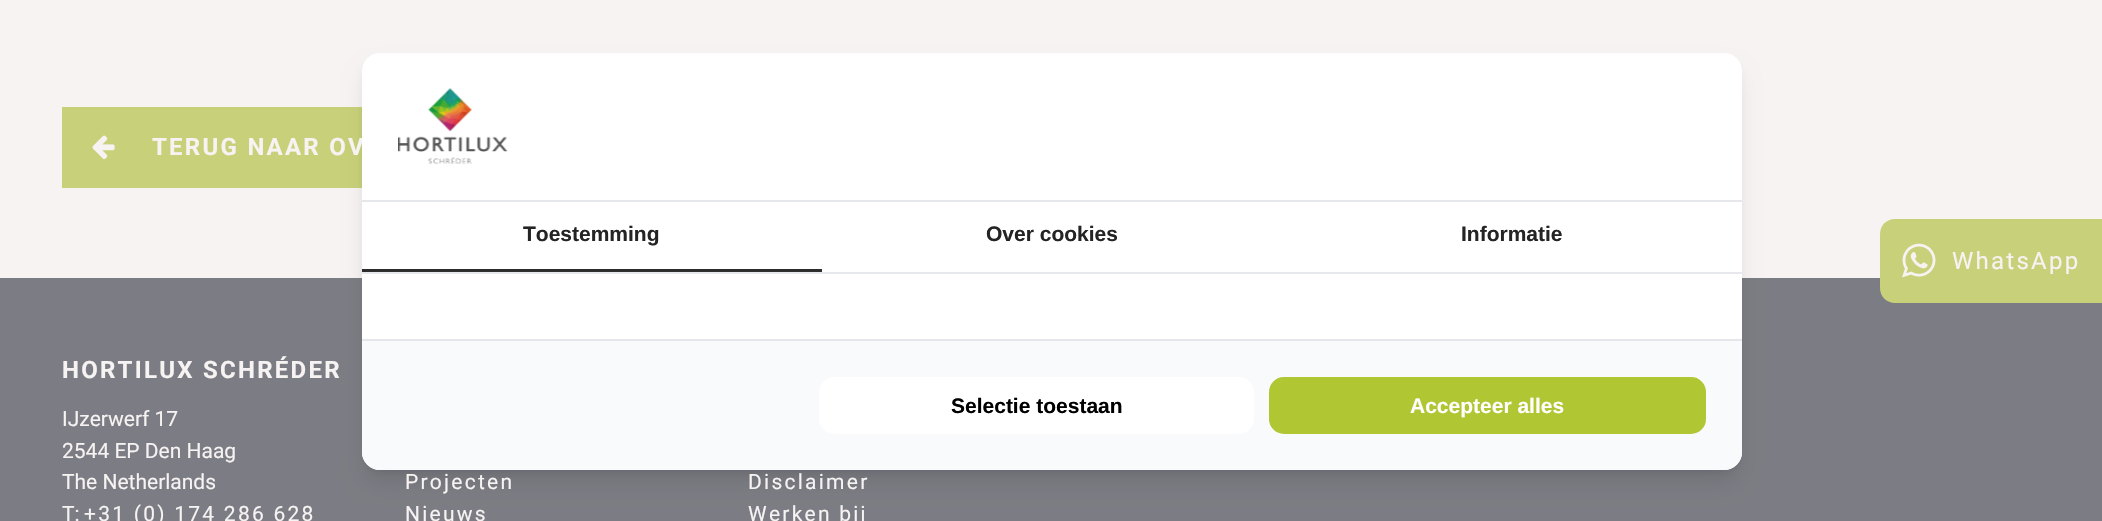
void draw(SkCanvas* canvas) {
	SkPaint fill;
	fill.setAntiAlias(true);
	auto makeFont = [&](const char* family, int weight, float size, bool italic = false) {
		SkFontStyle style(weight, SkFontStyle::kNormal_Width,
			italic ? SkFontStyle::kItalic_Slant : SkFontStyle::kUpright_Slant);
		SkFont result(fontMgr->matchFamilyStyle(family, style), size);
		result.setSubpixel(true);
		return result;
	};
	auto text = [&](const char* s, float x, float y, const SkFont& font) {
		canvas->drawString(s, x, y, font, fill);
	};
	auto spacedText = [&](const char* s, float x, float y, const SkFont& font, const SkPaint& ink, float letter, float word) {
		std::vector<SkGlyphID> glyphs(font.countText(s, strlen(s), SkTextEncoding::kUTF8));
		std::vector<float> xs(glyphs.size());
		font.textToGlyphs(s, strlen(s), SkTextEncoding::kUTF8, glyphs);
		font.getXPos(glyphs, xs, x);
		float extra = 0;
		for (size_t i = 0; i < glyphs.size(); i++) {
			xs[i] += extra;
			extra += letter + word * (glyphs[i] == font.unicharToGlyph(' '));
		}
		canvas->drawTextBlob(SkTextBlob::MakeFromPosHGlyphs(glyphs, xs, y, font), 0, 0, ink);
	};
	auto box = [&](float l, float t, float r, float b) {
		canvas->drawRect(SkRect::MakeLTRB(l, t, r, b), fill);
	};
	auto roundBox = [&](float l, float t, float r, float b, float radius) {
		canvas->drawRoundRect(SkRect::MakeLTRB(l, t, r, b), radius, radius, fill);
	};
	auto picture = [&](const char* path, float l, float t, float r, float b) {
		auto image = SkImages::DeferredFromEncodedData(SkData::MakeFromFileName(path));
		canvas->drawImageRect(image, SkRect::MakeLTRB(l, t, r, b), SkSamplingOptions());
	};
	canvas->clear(0xFFF7F3F3);
	fill.setColor(0xFFC8D179);
	box(62, 107, 362, 188);
	picture("image0.png", 92, 135, 115, 159);
	fill.setColor(0xFF7C7D84);
	box(0, 278, 2102, 521);
	fill.setColor(0xFFC8D179);
	canvas->drawPath(SkPathBuilder().moveTo(1895, 219).lineTo(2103, 219).lineTo(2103, 303).lineTo(1895, 303).cubicTo(1886.5f, 303, 1880, 296.5f, 1880, 288).lineTo(1880, 234).cubicTo(1880, 225.5f, 1886.5f, 219, 1895, 219).close().detach(), fill);
	picture("image1.png", 1902, 243, 1936, 278);
	fill.setColor(0x1A000000);
	fill.setMaskFilter(SkMaskFilter::MakeBlur(kNormal_SkBlurStyle, 4.5f));
	canvas->drawRoundRect(SkRect::MakeLTRB(368, 65, 1736, 470), 12, 12, fill);
	fill.setMaskFilter(nullptr);
	fill.setMaskFilter(SkMaskFilter::MakeBlur(kNormal_SkBlurStyle, 11));
	canvas->drawRoundRect(SkRect::MakeLTRB(366, 72, 1737, 480), 14, 14, fill);
	fill.setMaskFilter(nullptr);
	auto font1 = makeFont("Roboto", 700, 24);
	fill.setColor(0xFFF7F3F3);
	spacedText("TERUG NAAR OV", 152, 155, font1, fill, 2.25f, 0);
	auto font2 = makeFont("Roboto", 400, 24);
	spacedText("WhatsApp", 1952, 269, font2, fill, 2.25f, 0);
	spacedText("HORTILUX SCHRÉDER", 62, 378, font1, fill, 2.25f, 0);
	auto font3 = makeFont("Roboto", 400, 21);
	text("IJzerwerf 17", 62, 426, font3);
	text("2544 EP Den Haag", 62, 458, font3);
	text("The Netherlands", 62, 489, font3);
	text("T:", 62, 521, font3);
	spacedText("+31 (0) 174 286 628", 84, 521, font3, fill, 2.25f, 0);
	spacedText("Projecten", 405, 489, font3, fill, 2.25f, 0);
	spacedText("Nieuws", 405, 521, font3, fill, 2.25f, 0);
	spacedText("Disclaimer", 748, 489, font3, fill, 2.25f, 0);
	spacedText("Werken bij", 748, 521, font3, fill, 2.25f, 0);
	fill.setColor(0xFFFFFFFF);
	roundBox(362, 53, 1742, 470, 18);
	fill.setColor(0xFFE5E7EB);
	box(362, 200, 1742, 202);
	picture("image2.png", 398, 88, 508, 164);
	box(362, 272, 1742, 274);
	fill.setColor(0xFF242424);
	box(362, 269, 822, 272);
	auto font4 = makeFont("Liberation Sans", 700, 21);
	text("Toestemming", 523, 241, font4);
	text("Over cookies", 986, 241, font4);
	text("Informatie", 1461, 241, font4);
	canvas->save();
	canvas->clipPath(SkPathBuilder().moveTo(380, 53).lineTo(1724, 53).cubicTo(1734, 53, 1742, 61, 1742, 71).lineTo(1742, 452).cubicTo(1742, 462, 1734, 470, 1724, 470).lineTo(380, 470).cubicTo(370, 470, 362, 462, 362, 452).lineTo(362, 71).cubicTo(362, 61, 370, 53, 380, 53).close().detach(), true);
	fill.setColor(0xFFFFFFFF);
	fill.setMaskFilter(SkMaskFilter::MakeBlur(kNormal_SkBlurStyle, 15));
	canvas->drawRect(SkRect::MakeLTRB(350, 297, 1754, 452), fill);
	fill.setMaskFilter(nullptr);
	canvas->restore();
	fill.setColor(0xFFF9FAFB);
	canvas->drawPath(SkPathBuilder().moveTo(362, 339).lineTo(1742, 339).lineTo(1742, 452).cubicTo(1742, 462, 1734, 470, 1724, 470).lineTo(380, 470).cubicTo(370, 470, 362, 462, 362, 452).close().detach(), fill);
	fill.setColor(0xFFE5E7EB);
	box(362, 339, 1742, 341);
	fill.setColor(0xFFFFFFFF);
	roundBox(819, 377, 1254, 434, 15);
	fill.setColor(0xFF000000);
	text("Selectie toestaan", 951, 413, font4);
	fill.setColor(0xFFB0C633);
	roundBox(1269, 377, 1706, 434, 15);
	fill.setColor(0xFFFFFFFF);
	text("Accepteer alles", 1410, 413, font4);
}
